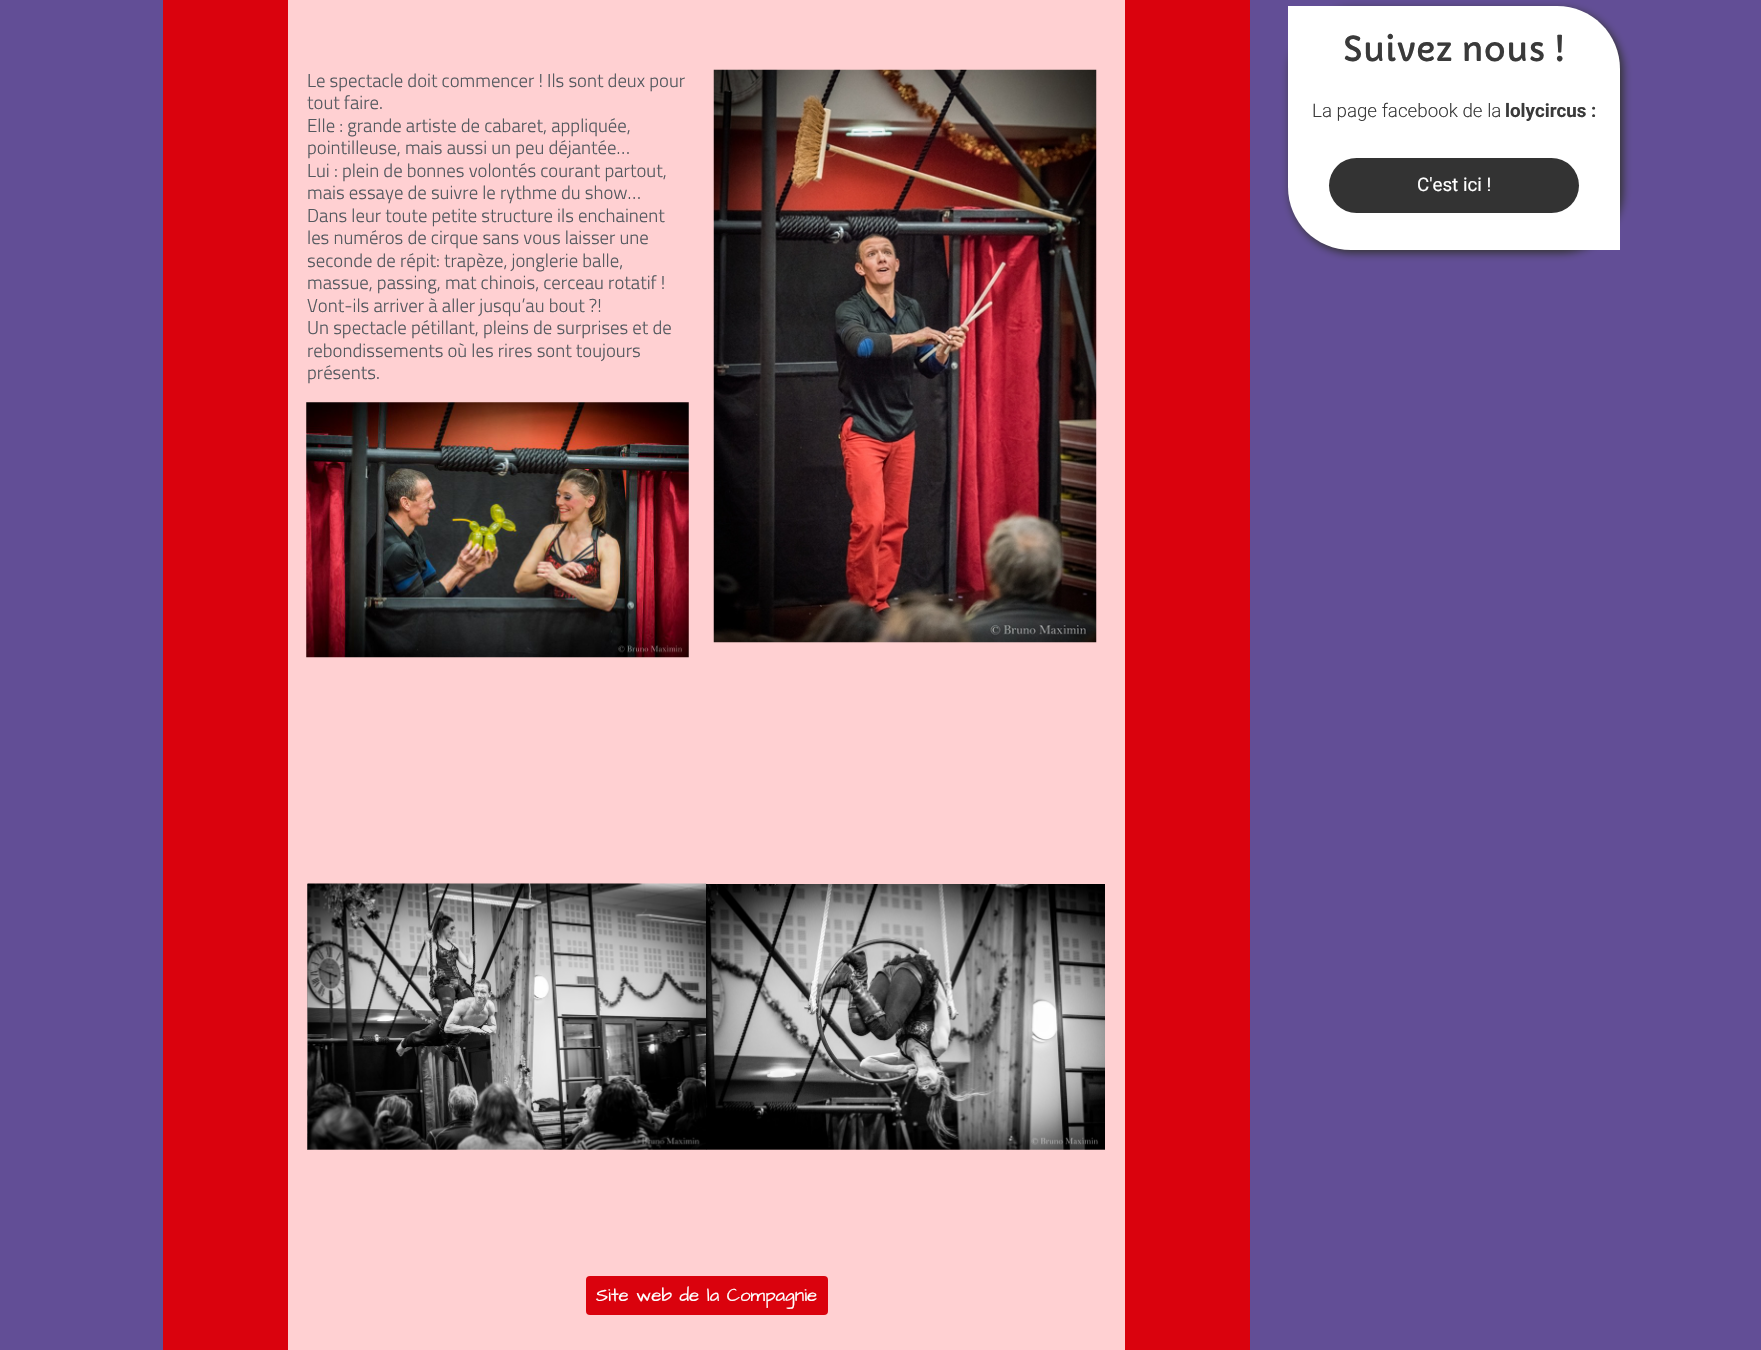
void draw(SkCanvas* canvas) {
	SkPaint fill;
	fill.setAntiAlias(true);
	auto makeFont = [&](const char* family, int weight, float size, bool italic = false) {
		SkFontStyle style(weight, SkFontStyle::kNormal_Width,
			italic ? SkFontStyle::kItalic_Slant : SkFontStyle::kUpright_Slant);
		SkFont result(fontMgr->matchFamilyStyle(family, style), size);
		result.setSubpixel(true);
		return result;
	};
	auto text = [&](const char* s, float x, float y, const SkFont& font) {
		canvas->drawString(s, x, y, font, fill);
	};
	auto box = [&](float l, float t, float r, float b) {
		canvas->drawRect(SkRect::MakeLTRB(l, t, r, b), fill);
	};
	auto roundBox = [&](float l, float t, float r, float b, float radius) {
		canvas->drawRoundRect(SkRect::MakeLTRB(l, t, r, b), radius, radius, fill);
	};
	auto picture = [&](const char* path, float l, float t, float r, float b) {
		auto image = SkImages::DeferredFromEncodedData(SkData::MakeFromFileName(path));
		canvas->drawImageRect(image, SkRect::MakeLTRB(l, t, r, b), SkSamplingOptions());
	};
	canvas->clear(0xFF624E96);
	fill.setColor(0xFFDA020D);
	box(163, 0, 1250, 1350);
	fill.setColor(0xFFFFD0D2);
	box(288, 0, 1125, 1350);
	picture("image0.png", 306, 402, 689, 658);
	picture("image1.png", 713, 69, 1097, 643);
	picture("image3.png", 307, 884, 308, 1150);
	picture("image2.png", 307, 883, 707, 1150);
	picture("image4.png", 706, 884, 1105, 1150);
	fill.setColor(0xFFDA020D);
	roundBox(586, 1276, 828, 1315, 4);
	fill.setColor(0xFF333333);
	fill.setMaskFilter(SkMaskFilter::MakeBlur(kNormal_SkBlurStyle, 4));
	canvas->drawRoundRect(SkRect::MakeLTRB(1290, 9, 1623, 253), 63, 63, fill);
	fill.setMaskFilter(nullptr);
	fill.setColor(0xFFFFFFFF);
	canvas->drawPath(SkPathBuilder().moveTo(1288, 6).lineTo(1557, 6).cubicTo(1592, 6, 1620, 34, 1620, 69).lineTo(1620, 250).lineTo(1351, 250).cubicTo(1316, 250, 1288, 222, 1288, 187).close().detach(), fill);
	fill.setColor(0xFF333333);
	roundBox(1329, 158, 1579, 213, 27.5f);
	auto font1 = makeFont("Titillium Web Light", 300, 18.75f);
	fill.setColor(0xFF54595F);
	text("Le spectacle doit commencer ! Ils sont deux pour", 307, 87, font1);
	text("tout faire.", 307, 109, font1);
	text("Elle : grande artiste de cabaret, appliquée,", 307, 132, font1);
	text("pointilleuse, mais aussi un peu déjantée…", 307, 154, font1);
	text("Lui : plein de bonnes volontés courant partout,", 307, 177, font1);
	text("mais essaye de suivre le rythme du show…", 307, 199, font1);
	text("Dans leur toute petite structure ils enchainent", 307, 222, font1);
	text("les numéros de cirque sans vous laisser une", 307, 244, font1);
	text("seconde de répit: trapèze, jonglerie balle,", 307, 267, font1);
	text("massue, passing, mat chinois, cerceau rotatif !", 307, 289, font1);
	text("Vont-ils arriver à aller jusqu’au bout ?!", 307, 312, font1);
	text("Un spectacle pétillant, pleins de surprises et de", 307, 334, font1);
	text("rebondissements où les rires sont toujours", 307, 357, font1);
	text("présents.", 307, 379, font1);
	auto font2 = makeFont("Architects Daughter", 400, 18.75f);
	fill.setColor(0xFFFFFFFF);
	text("Site web de la Compagnie", 596, 1301, font2);
	auto font3 = makeFont("Capriola", 400, 33.75f);
	fill.setColor(0xFF3A3A3A);
	text("Suivez nous !", 1343, 61, font3);
	auto font4 = makeFont("Roboto", 300, 18.75f);
	text("La page facebook de la", 1312, 117, font4);
	auto font5 = makeFont("Roboto", 700, 18.75f);
	text("lolycircus :", 1505, 117, font5);
	auto font6 = makeFont("Roboto", 400, 18.75f);
	fill.setColor(0xFFFFFFFF);
	text("C'est ici !", 1417, 191, font6);
}
